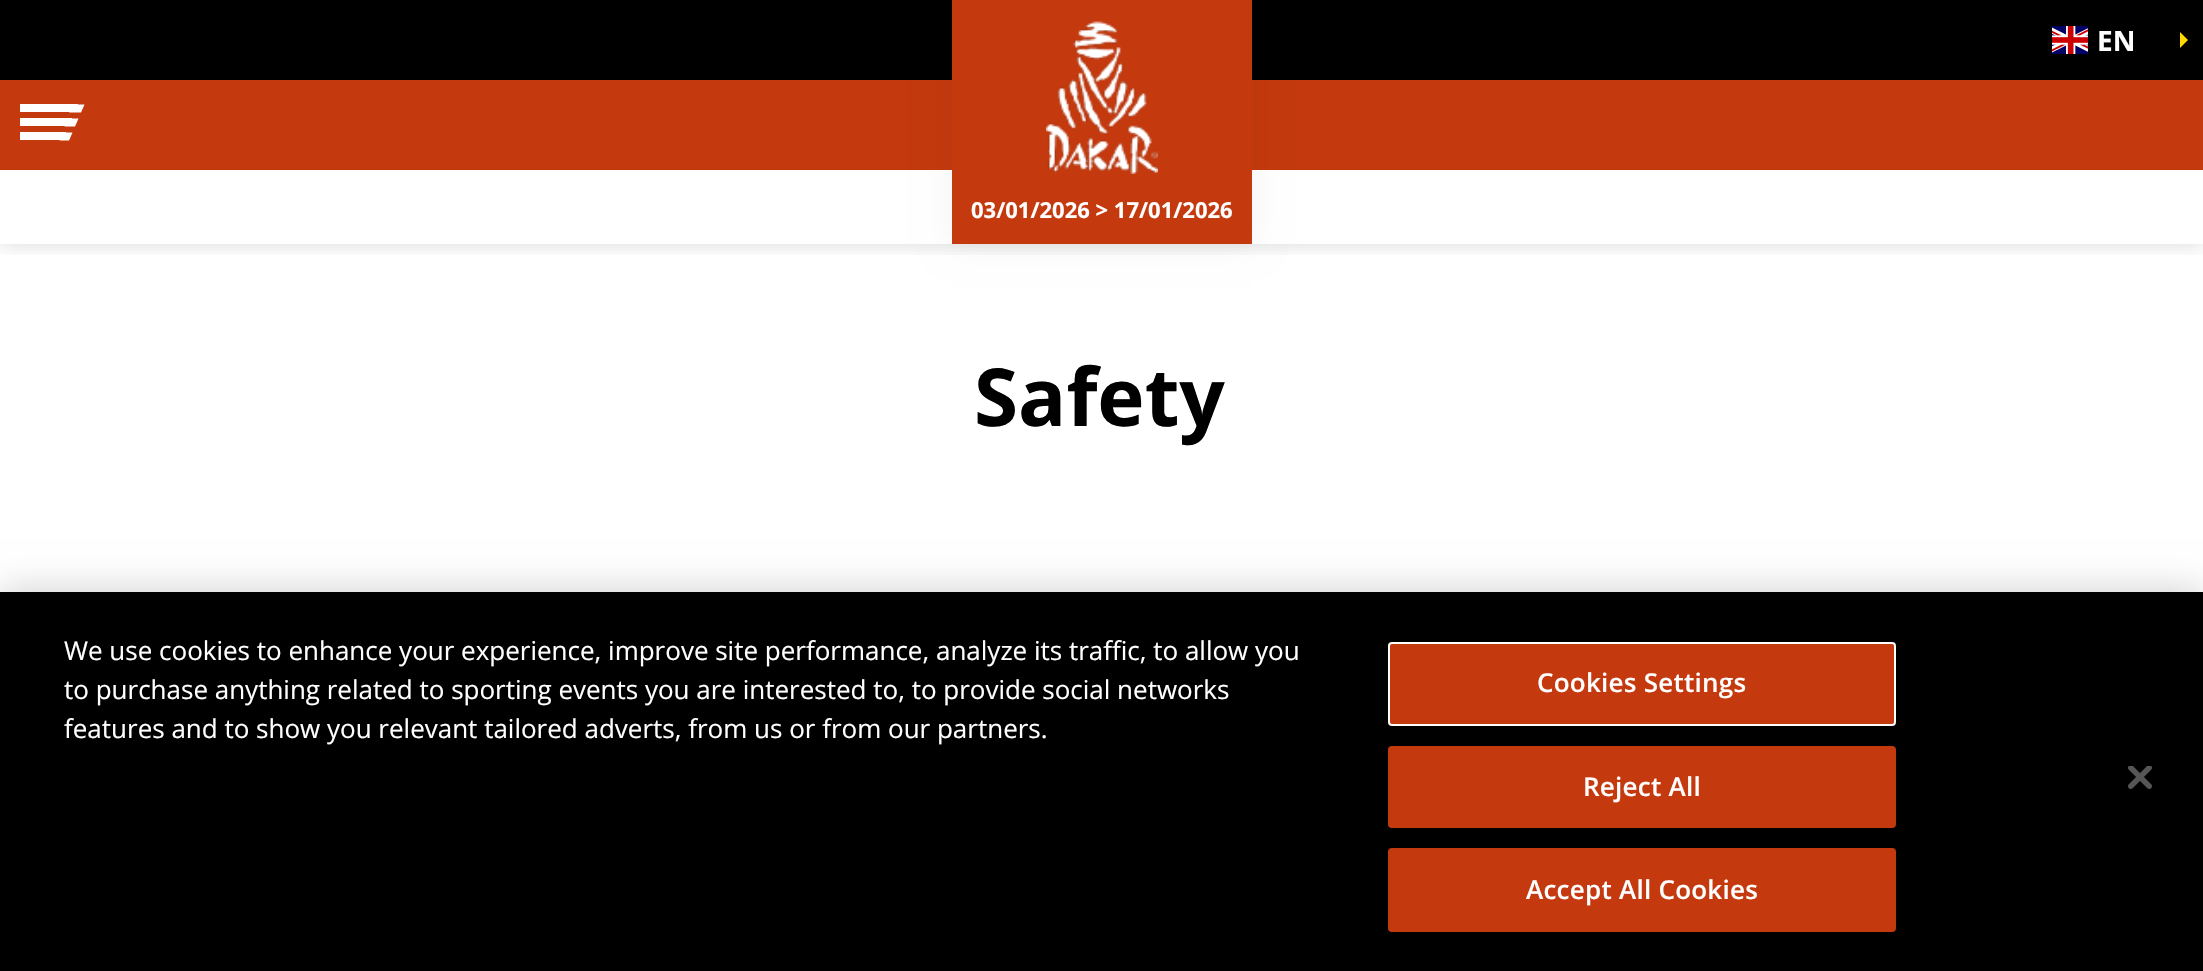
void draw(SkCanvas* canvas) {
	SkPaint fill;
	fill.setAntiAlias(true);
	auto makeFont = [&](const char* family, int weight, float size, bool italic = false) {
		SkFontStyle style(weight, SkFontStyle::kNormal_Width,
			italic ? SkFontStyle::kItalic_Slant : SkFontStyle::kUpright_Slant);
		SkFont result(fontMgr->matchFamilyStyle(family, style), size);
		result.setSubpixel(true);
		return result;
	};
	auto text = [&](const char* s, float x, float y, const SkFont& font) {
		canvas->drawString(s, x, y, font, fill);
	};
	auto spacedText = [&](const char* s, float x, float y, const SkFont& font, const SkPaint& ink, float letter, float word) {
		std::vector<SkGlyphID> glyphs(font.countText(s, strlen(s), SkTextEncoding::kUTF8));
		std::vector<float> xs(glyphs.size());
		font.textToGlyphs(s, strlen(s), SkTextEncoding::kUTF8, glyphs);
		font.getXPos(glyphs, xs, x);
		float extra = 0;
		for (size_t i = 0; i < glyphs.size(); i++) {
			xs[i] += extra;
			extra += letter + word * (glyphs[i] == font.unicharToGlyph(' '));
		}
		canvas->drawTextBlob(SkTextBlob::MakeFromPosHGlyphs(glyphs, xs, y, font), 0, 0, ink);
	};
	auto box = [&](float l, float t, float r, float b) {
		canvas->drawRect(SkRect::MakeLTRB(l, t, r, b), fill);
	};
	auto picture = [&](const char* path, float l, float t, float r, float b) {
		auto image = SkImages::DeferredFromEncodedData(SkData::MakeFromFileName(path));
		canvas->drawImageRect(image, SkRect::MakeLTRB(l, t, r, b), SkSamplingOptions());
	};
	canvas->clear(0xFFFFFFFF);
	canvas->save();
	canvas->clipRect(SkRect::MakeLTRB(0, 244, 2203, 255));
	fill.setColor(0x26000000);
	fill.setMaskFilter(SkMaskFilter::MakeBlur(kNormal_SkBlurStyle, 10));
	canvas->drawRect(SkRect::MakeLTRB(0, 0, 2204, 244), fill);
	fill.setMaskFilter(nullptr);
	canvas->restore();
	fill.setColor(0xFF000000);
	box(0, 0, 2203, 80);
	picture("image0.png", 2052, 26, 2088, 54);
	fill.setColor(0xFFFFDA00);
	canvas->drawPath(SkPathBuilder().moveTo(2180, 48).lineTo(2180, 32).lineTo(2188, 40).close().detach(), fill);
	fill.setColor(0xFFC4390E);
	box(0, 80, 2203, 170);
	fill.setColor(0xFFFFFFFF);
	box(20, 104, 78, 112);
	canvas->drawPath(SkPathBuilder().moveTo(73, 104.5f).lineTo(84.5f, 104.5f).lineTo(81, 112.5f).lineTo(69, 112.5f).close().detach(), fill);
	box(20, 118, 72, 126);
	canvas->drawPath(SkPathBuilder().moveTo(68, 118.5f).lineTo(78.5f, 118.5f).lineTo(75, 126.5f).lineTo(64.5f, 126.5f).close().detach(), fill);
	box(20, 132, 66, 140);
	canvas->drawPath(SkPathBuilder().moveTo(63.5f, 132.5f).lineTo(72.5f, 132.5f).lineTo(69, 140.5f).lineTo(59.5f, 140.5f).close().detach(), fill);
	fill.setColor(0x0D000000);
	fill.setMaskFilter(SkMaskFilter::MakeBlur(kNormal_SkBlurStyle, 15));
	canvas->drawRect(SkRect::MakeLTRB(952, 0, 1252, 244), fill);
	fill.setMaskFilter(nullptr);
	fill.setColor(0xFFC4390E);
	box(952, 0, 1252, 244);
	picture("image1.png", 1046, 21, 1158, 174);
	fill.setColor(0x33000000);
	fill.setMaskFilter(SkMaskFilter::MakeBlur(kNormal_SkBlurStyle, 18));
	canvas->drawRect(SkRect::MakeLTRB(0, 592, 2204, 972), fill);
	fill.setMaskFilter(nullptr);
	fill.setColor(0xFF000000);
	box(0, 592, 2203, 971);
	fill.setColor(0xFFC4390E);
	canvas->drawRoundRect(SkRect::MakeLTRB(1389, 643, 1895, 725), 3, 3, fill);
	fill.setStyle(SkPaint::kStroke_Style);
	fill.setStrokeWidth(2);
	fill.setColor(0xFFFFFFFF);
	canvas->drawRoundRect(SkRect::MakeLTRB(1389, 643, 1895, 725), 3, 3, fill);
	fill.setStyle(SkPaint::kFill_Style);
	fill.setColor(0xFFC4390E);
	canvas->drawRoundRect(SkRect::MakeLTRB(1389, 747, 1895, 827), 3, 3, fill);
	fill.setStyle(SkPaint::kStroke_Style);
	canvas->drawRoundRect(SkRect::MakeLTRB(1389, 747, 1895, 827), 3, 3, fill);
	fill.setStyle(SkPaint::kFill_Style);
	canvas->drawRoundRect(SkRect::MakeLTRB(1389, 849, 1895, 931), 3, 3, fill);
	fill.setStyle(SkPaint::kStroke_Style);
	canvas->drawRoundRect(SkRect::MakeLTRB(1389, 849, 1895, 931), 3, 3, fill);
	picture("image2.png", 2128, 766, 2152, 789);
	auto font1 = makeFont("Open Sans", 700, 28);
	fill.setStyle(SkPaint::kFill_Style);
	fill.setColor(0xFFFFFFFF);
	text("EN", 2097, 51, font1);
	auto font2 = makeFont("Open Sans", 700, 22);
	text("03/01/2026 > 17/01/2026", 971, 218, font2);
	auto font3 = makeFont("Open Sans", 700, 80);
	fill.setColor(0xFF000000);
	text("Safety", 974, 426, font3);
	auto font4 = makeFont("Open Sans", 400, 26);
	fill.setColor(0xFFFFFFFF);
	text("We use cookies to enhance your experience, improve site performance, analyze its traffic, to allow you", 64, 660, font4);
	text("to purchase anything related to sporting events you are interested to, to provide social networks", 64, 699, font4);
	text("features and to show you relevant tailored adverts, from us or from our partners.", 64, 738, font4);
	auto font5 = makeFont("Open Sans", 600, 26);
	spacedText("Cookies Settings", 1537, 692, font5, fill, 0.25f, 0);
	spacedText("Reject All", 1583, 796, font5, fill, 0.25f, 0);
	spacedText("Accept All Cookies", 1526, 899, font5, fill, 0.25f, 0);
}
